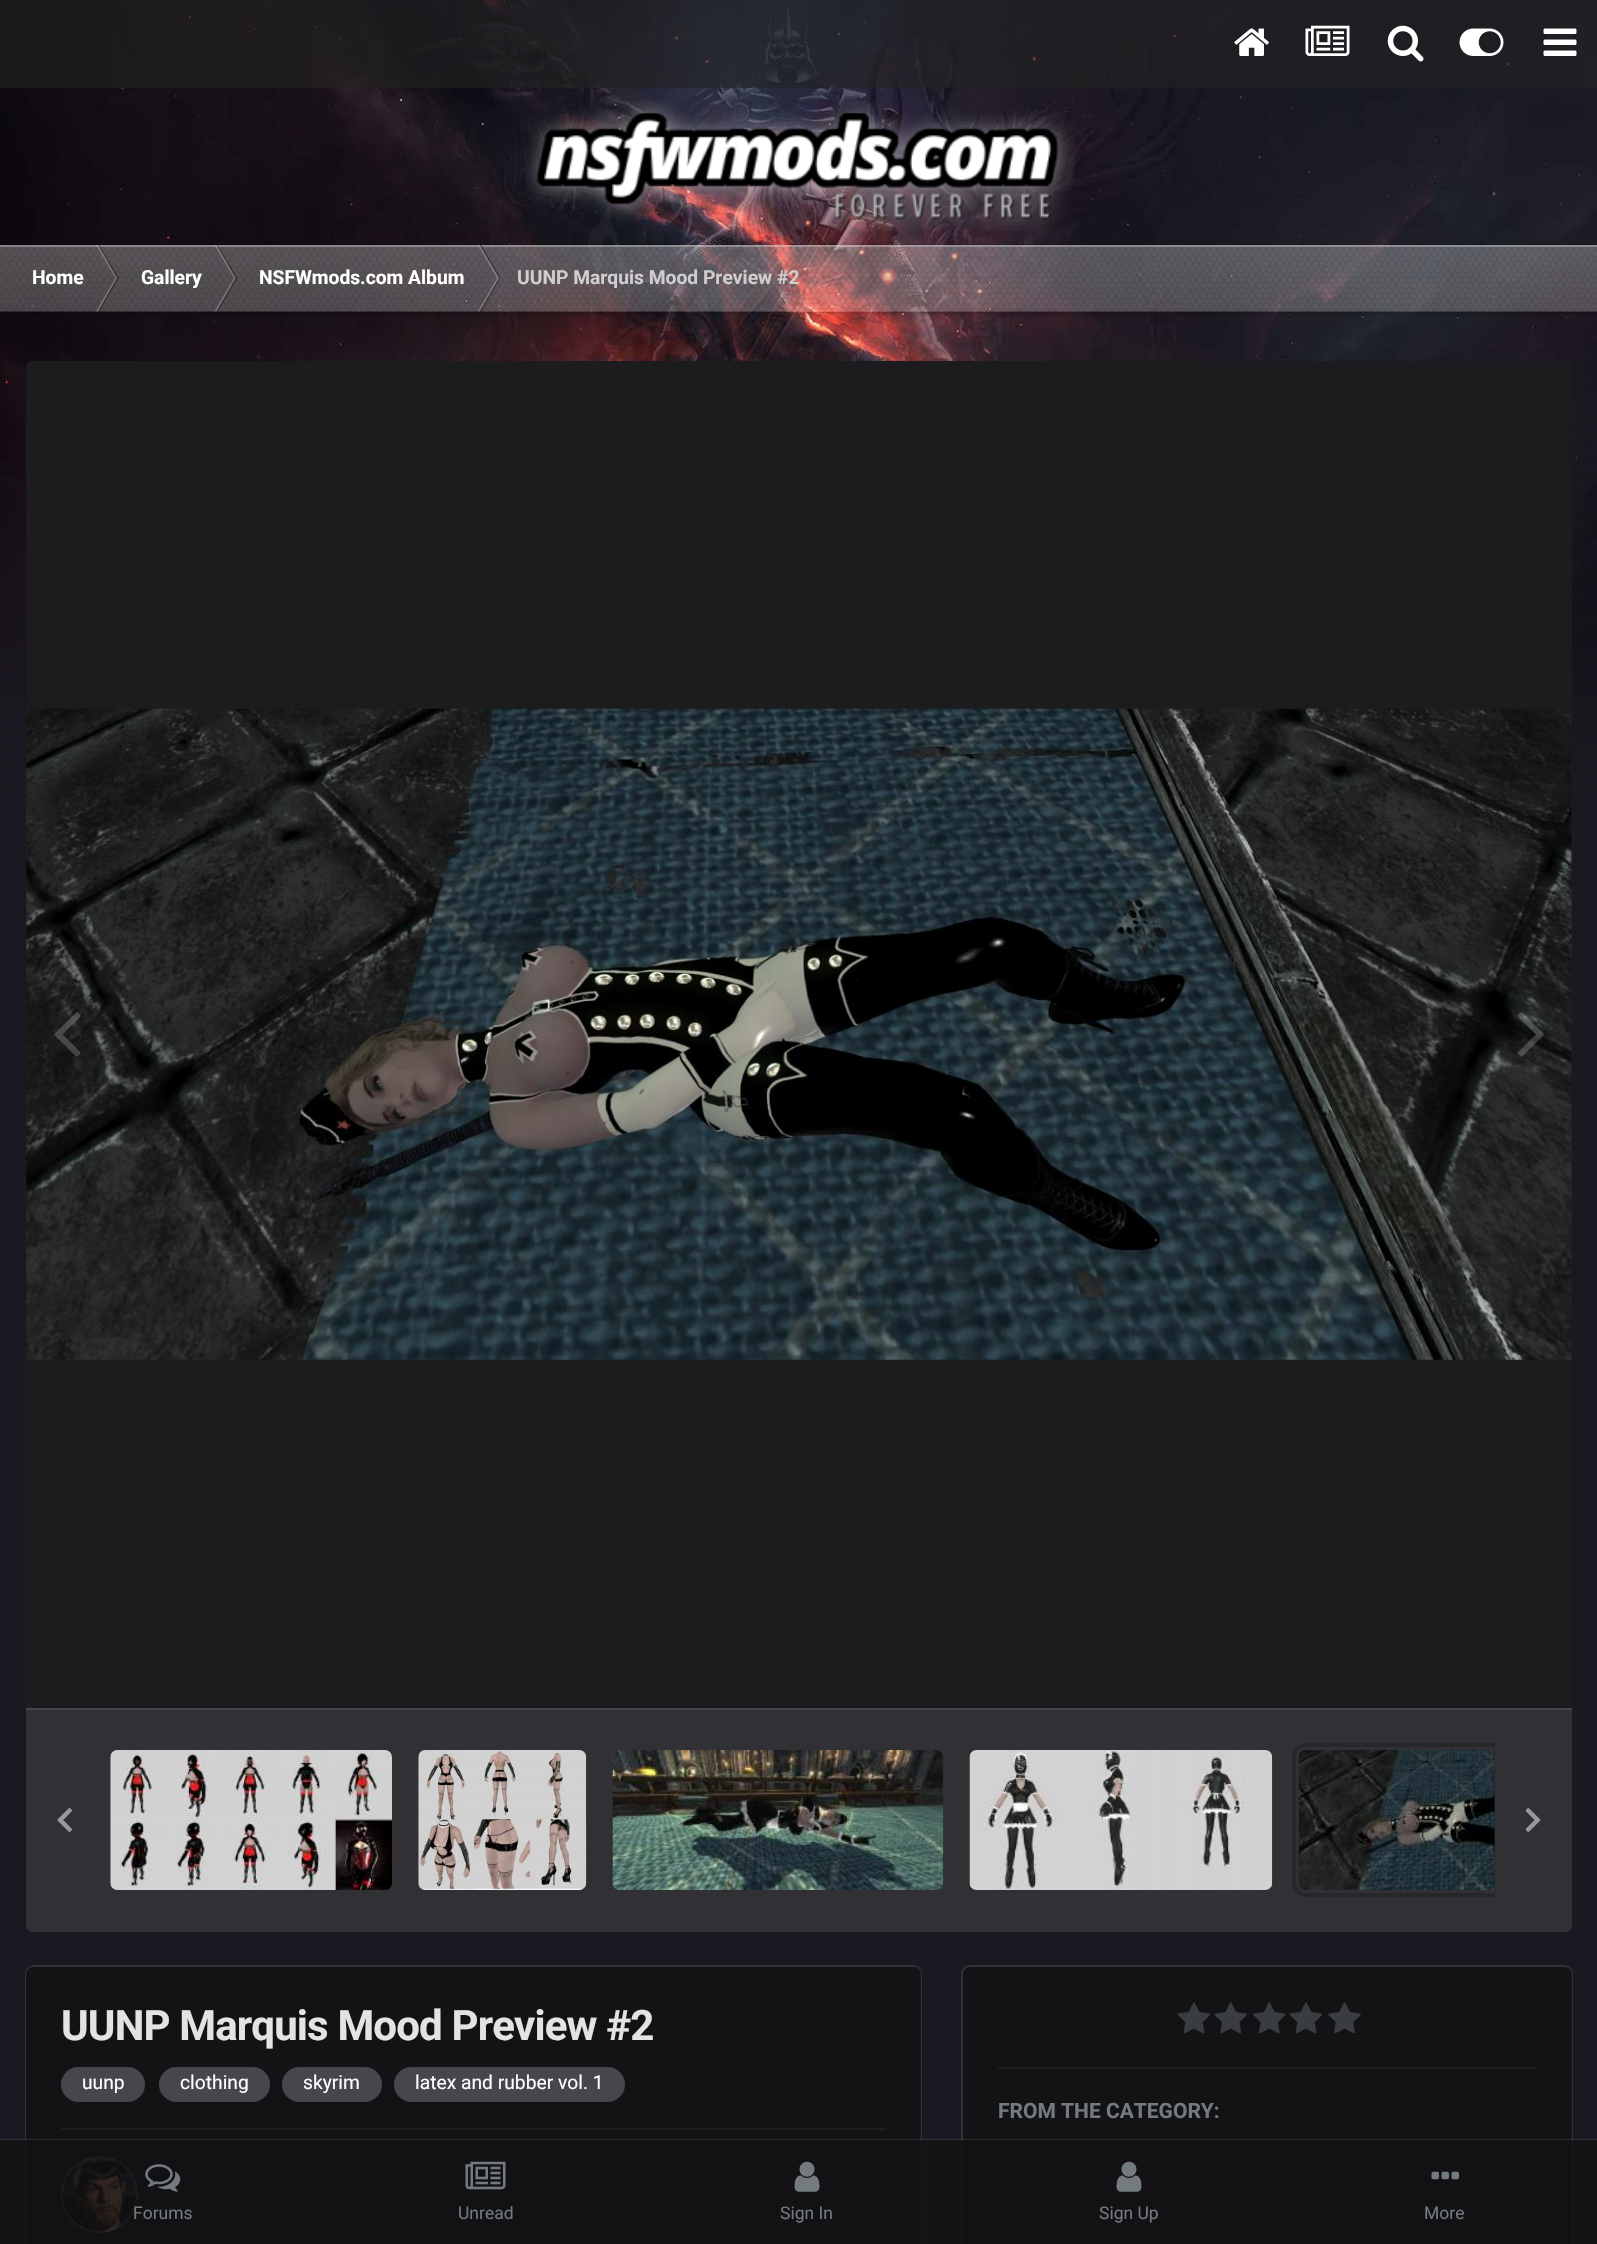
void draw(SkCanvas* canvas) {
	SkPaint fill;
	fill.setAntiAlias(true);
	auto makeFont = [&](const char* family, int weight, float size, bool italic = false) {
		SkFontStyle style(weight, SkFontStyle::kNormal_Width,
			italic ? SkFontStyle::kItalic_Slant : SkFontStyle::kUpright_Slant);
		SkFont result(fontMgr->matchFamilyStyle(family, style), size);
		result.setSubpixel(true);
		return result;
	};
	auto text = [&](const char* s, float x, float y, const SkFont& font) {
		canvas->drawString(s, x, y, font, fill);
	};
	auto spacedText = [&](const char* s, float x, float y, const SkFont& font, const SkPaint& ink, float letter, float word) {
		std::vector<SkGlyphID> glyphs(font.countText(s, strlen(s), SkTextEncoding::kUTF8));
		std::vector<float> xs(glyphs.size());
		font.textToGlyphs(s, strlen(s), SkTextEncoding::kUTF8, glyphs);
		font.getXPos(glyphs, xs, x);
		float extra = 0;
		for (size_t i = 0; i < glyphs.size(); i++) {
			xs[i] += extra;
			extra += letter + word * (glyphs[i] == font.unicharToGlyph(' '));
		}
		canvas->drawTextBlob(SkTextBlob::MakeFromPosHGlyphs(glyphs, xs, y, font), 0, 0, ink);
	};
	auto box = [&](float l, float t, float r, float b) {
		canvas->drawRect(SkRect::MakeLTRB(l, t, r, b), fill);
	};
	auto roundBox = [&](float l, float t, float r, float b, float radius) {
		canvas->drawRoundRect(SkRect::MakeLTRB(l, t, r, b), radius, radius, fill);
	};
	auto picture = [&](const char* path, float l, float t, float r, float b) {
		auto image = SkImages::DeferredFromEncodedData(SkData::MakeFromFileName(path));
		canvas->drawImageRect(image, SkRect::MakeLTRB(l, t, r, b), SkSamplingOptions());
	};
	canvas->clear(0xFF1A1921);
	picture("image0.png", 0, 0, 1597, 793);
	{
		const SkColor colors[] = {0x001A1921, 0xFF1A1921};
		const float stops[] = {0, 0.95f};
		const SkPoint ends[] = {{799, 408}, {799, 816}};
		fill.setShader(SkGradientShader::MakeLinear(ends, colors, stops, 2, SkTileMode::kClamp));
		fill.setAlpha(255);
	}
	box(0, 416, 1597, 793);
	fill.setShader(nullptr);
	fill.setColor(0x99222222);
	box(0, 0, 1597, 88);
	picture("image1.png", 1234, 28, 1269, 56);
	picture("image2.png", 1305, 25, 1350, 56);
	picture("image3.png", 1387, 25, 1424, 62);
	picture("image4.png", 1459, 28, 1504, 56);
	picture("image5.png", 1543, 28, 1577, 56);
	picture("image6.png", 525, 100, 1075, 231);
	canvas->save();
	canvas->clipPath(SkPathBuilder(SkPathFillType::kEvenOdd).moveTo(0, 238).lineTo(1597, 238).lineTo(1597, 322).lineTo(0, 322).close().moveTo(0, 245).lineTo(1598, 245).lineTo(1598, 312).lineTo(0, 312).close().detach(), true);
	fill.setColor(0x4D000000);
	fill.setMaskFilter(SkMaskFilter::MakeBlur(kNormal_SkBlurStyle, 2.5f));
	canvas->drawRect(SkRect::MakeLTRB(0, 247, 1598, 313), fill);
	fill.setMaskFilter(nullptr);
	canvas->restore();
	picture("image7.png", 0, 245, 1597, 312);
	fill.setColor(0x4DFFFFFF);
	box(0, 245, 1597, 247);
	fill.setColor(0x40FFFFFF);
	canvas->drawPath(SkPathBuilder().moveTo(96, 245).lineTo(98, 245).lineTo(117, 278).lineTo(115.5f, 278).close().detach(), fill);
	fill.setColor(0x4D000000);
	canvas->drawPath(SkPathBuilder().moveTo(98, 245).lineTo(99.5f, 245).lineTo(119, 278).lineTo(117, 278).close().detach(), fill);
	fill.setColor(0x40FFFFFF);
	canvas->drawPath(SkPathBuilder().moveTo(96, 311.5f).lineTo(98, 311.5f).lineTo(117, 278).lineTo(115.5f, 278).close().detach(), fill);
	fill.setColor(0x4D000000);
	canvas->drawPath(SkPathBuilder().moveTo(98, 311.5f).lineTo(99.5f, 311.5f).lineTo(119, 278).lineTo(117, 278).close().detach(), fill);
	fill.setColor(0x40FFFFFF);
	canvas->drawPath(SkPathBuilder().moveTo(214.5f, 245).lineTo(216.5f, 245).lineTo(235.5f, 278).lineTo(234, 278).close().detach(), fill);
	fill.setColor(0x4D000000);
	canvas->drawPath(SkPathBuilder().moveTo(216.5f, 245).lineTo(218, 245).lineTo(237.5f, 278).lineTo(235.5f, 278).close().detach(), fill);
	fill.setColor(0x40FFFFFF);
	canvas->drawPath(SkPathBuilder().moveTo(214.5f, 311.5f).lineTo(216.5f, 311.5f).lineTo(235.5f, 278).lineTo(234, 278).close().detach(), fill);
	fill.setColor(0x4D000000);
	canvas->drawPath(SkPathBuilder().moveTo(216.5f, 311.5f).lineTo(218, 311.5f).lineTo(237.5f, 278).lineTo(235.5f, 278).close().detach(), fill);
	fill.setColor(0x40FFFFFF);
	canvas->drawPath(SkPathBuilder().moveTo(478, 245).lineTo(479.5f, 245).lineTo(499, 278).lineTo(497, 278).close().detach(), fill);
	fill.setColor(0x4D000000);
	canvas->drawPath(SkPathBuilder().moveTo(479.5f, 245).lineTo(481.5f, 245).lineTo(500.5f, 278).lineTo(499, 278).close().detach(), fill);
	fill.setColor(0x40FFFFFF);
	canvas->drawPath(SkPathBuilder().moveTo(478, 311.5f).lineTo(479.5f, 311.5f).lineTo(499, 278).lineTo(497, 278).close().detach(), fill);
	fill.setColor(0x4D000000);
	canvas->drawPath(SkPathBuilder().moveTo(479.5f, 311.5f).lineTo(481.5f, 311.5f).lineTo(500.5f, 278).lineTo(499, 278).close().detach(), fill);
	fill.setColor(0xFF46464C);
	canvas->drawPath(SkPathBuilder().moveTo(33, 361).lineTo(1565, 361).cubicTo(1569, 361, 1572, 364, 1572, 368).lineTo(1572, 1708).lineTo(26, 1708).lineTo(26, 368).cubicTo(26, 364, 29, 361, 33, 361).close().detach(), fill);
	fill.setColor(0x99000000);
	canvas->drawPath(SkPathBuilder().moveTo(33, 361).lineTo(1565, 361).cubicTo(1569, 361, 1572, 364, 1572, 368).lineTo(1572, 1708).lineTo(26, 1708).lineTo(26, 368).cubicTo(26, 364, 29, 361, 33, 361).close().detach(), fill);
	picture("image8.png", 26, 708, 1572, 1360);
	picture("image9.png", 54, 1012, 81, 1057);
	picture("image10.png", 1518, 1012, 1544, 1057);
	fill.setColor(0xFF46464C);
	canvas->drawPath(SkPathBuilder().moveTo(26, 1708).lineTo(1572, 1708).lineTo(1572, 1925).cubicTo(1572, 1929, 1569, 1932, 1565, 1932).lineTo(33, 1932).cubicTo(29, 1932, 26, 1929, 26, 1925).close().detach(), fill);
	fill.setColor(0x4D000000);
	canvas->drawPath(SkPathBuilder().moveTo(26, 1708).lineTo(1572, 1708).lineTo(1572, 1925).cubicTo(1572, 1929, 1569, 1932, 1565, 1932).lineTo(33, 1932).cubicTo(29, 1932, 26, 1929, 26, 1925).close().detach(), fill);
	fill.setColor(0xFF464649);
	box(26, 1708, 1572, 1710);
	fill.setColor(0xFF141414);
	roundBox(110, 1750, 392, 1890, 7);
	fill.setColor(0x4D46464C);
	roundBox(110, 1750, 392, 1890, 7);
	picture("image11.png", 110, 1750, 392, 1890);
	fill.setColor(0xFF141414);
	roundBox(418, 1750, 586, 1890, 7);
	fill.setColor(0x4D46464C);
	roundBox(418, 1750, 586, 1890, 7);
	picture("image12.png", 418, 1750, 587, 1890);
	picture("image13.png", 612, 1750, 944, 1890);
	picture("image14.png", 969, 1750, 1273, 1890);
	fill.setColor(0xFF141414);
	canvas->drawPath(SkPathBuilder().moveTo(1306, 1750).lineTo(1495, 1750).lineTo(1495, 1890).lineTo(1306, 1890).cubicTo(1302, 1890, 1299, 1887, 1299, 1883).lineTo(1299, 1757).cubicTo(1299, 1753, 1302, 1750, 1306, 1750).close().detach(), fill);
	fill.setColor(0x4D46464C);
	canvas->drawPath(SkPathBuilder().moveTo(1306, 1750).lineTo(1495, 1750).lineTo(1495, 1890).lineTo(1306, 1890).cubicTo(1302, 1890, 1299, 1887, 1299, 1883).lineTo(1299, 1757).cubicTo(1299, 1753, 1302, 1750, 1306, 1750).close().detach(), fill);
	canvas->save();
	canvas->clipRect(SkRect::MakeLTRB(103, 1743, 1495, 1897));
	fill.setStyle(SkPaint::kStroke_Style);
	fill.setStrokeWidth(4);
	fill.setColor(0xFF27262A);
	canvas->drawRoundRect(SkRect::MakeLTRB(1294, 1745, 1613, 1895), 12, 12, fill);
	canvas->restore();
	picture("image15.png", 1298, 1750, 1495, 1890);
	picture("image16.png", 57, 1808, 72, 1832);
	picture("image17.png", 1525, 1808, 1541, 1832);
	fill.setStyle(SkPaint::kFill_Style);
	fill.setColor(0xFF313037);
	canvas->drawPath(SkPathBuilder().moveTo(26, 1974).lineTo(26, 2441).cubicTo(26, 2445, 29, 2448, 33, 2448).lineTo(914, 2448).cubicTo(918, 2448, 921, 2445, 921, 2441).lineTo(921, 1976).lineTo(920, 1973).lineTo(920, 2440).cubicTo(920, 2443, 917, 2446, 914, 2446).lineTo(33, 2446).cubicTo(29, 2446, 26, 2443, 26, 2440).close().detach(), fill);
	fill.setStyle(SkPaint::kStroke_Style);
	fill.setStrokeWidth(2);
	fill.setColor(0x1AFFFFFF);
	canvas->drawRoundRect(SkRect::MakeLTRB(26, 1966, 921, 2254), 8, 8, fill);
	fill.setStyle(SkPaint::kFill_Style);
	fill.setColor(0xD9121213);
	roundBox(26, 1967, 921, 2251, 7);
	fill.setColor(0xFF46464C);
	roundBox(61, 2067, 145, 2102, 17.5f);
	roundBox(159, 2067, 270, 2102, 17.5f);
	roundBox(282, 2067, 382, 2102, 17.5f);
	roundBox(394, 2067, 625, 2102, 17.5f);
	fill.setColor(0xFF1E1E20);
	box(61, 2128, 886, 2130);
	picture("image18.png", 61, 2156, 139, 2233);
	fill.setStyle(SkPaint::kStroke_Style);
	fill.setColor(0x4D989DA0);
	canvas->drawCircle(99.5f, 2194.5f, 37.5f, fill);
	fill.setStyle(SkPaint::kFill_Style);
	fill.setColor(0xFF313037);
	canvas->drawPath(SkPathBuilder().moveTo(963, 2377).cubicTo(963, 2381, 966, 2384, 970, 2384).lineTo(1565, 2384).cubicTo(1569, 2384, 1572, 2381, 1572, 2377).lineTo(1572, 1976).lineTo(1571, 1973).lineTo(1572, 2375).cubicTo(1572, 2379, 1568, 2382, 1564, 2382).lineTo(970, 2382).cubicTo(967, 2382, 964, 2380, 963, 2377).close().detach(), fill);
	fill.setStyle(SkPaint::kStroke_Style);
	fill.setColor(0x1AFFFFFF);
	canvas->drawRoundRect(SkRect::MakeLTRB(962, 1966, 1572, 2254), 8, 8, fill);
	fill.setStyle(SkPaint::kFill_Style);
	fill.setColor(0xD9121213);
	roundBox(963, 1967, 1572, 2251, 7);
	picture("image19.png", 1177, 2002, 1211, 2034);
	picture("image20.png", 1214, 2002, 1247, 2034);
	picture("image21.png", 1253, 2002, 1286, 2034);
	picture("image19.png", 1289, 2002, 1323, 2034);
	picture("image22.png", 1328, 2002, 1361, 2034);
	fill.setColor(0xFF1E1E20);
	box(998, 2067, 1537, 2069);
	box(998, 2195, 1537, 2197);
	fill.setColor(0x1AFFFFFF);
	canvas->drawPath(SkPathBuilder().moveTo(0, 2139).lineTo(0, 2140).lineTo(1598, 2140).lineTo(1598, 2244).lineTo(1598, 2139).close().detach(), fill);
	fill.setColor(0xCC121213);
	box(0, 2140, 1597, 2244);
	picture("image23.png", 145, 2164, 181, 2192);
	picture("image24.png", 465, 2161, 506, 2190);
	picture("image25.png", 794, 2161, 820, 2192);
	picture("image25.png", 1116, 2161, 1142, 2192);
	picture("image26.png", 1431, 2171, 1459, 2180);
	auto font1 = makeFont("Roboto", 700, 19.25f);
	fill.setColor(0xFFFFFFFF);
	text("Home", 32, 284, font1);
	text("Gallery", 141, 284, font1);
	text("NSFWmods.com Album", 259, 284, font1);
	fill.setColor(0xFFD0CDCE);
	text("UUNP Marquis Mood Preview #2", 517, 284, font1);
	auto font2 = makeFont("Roboto", 700, 42);
	fill.setColor(0xFFE3E3E3);
	spacedText("UUNP Marquis Mood Preview #2", 61, 2040, font2, fill, -0.85f, 0);
	auto font3 = makeFont("Roboto", 400, 19.25f);
	fill.setColor(0xFFFFFFFF);
	text("uunp", 82, 2089, font3);
	text("clothing", 180, 2089, font3);
	text("skyrim", 303, 2089, font3);
	text("latex and rubber vol. 1", 415, 2089, font3);
	auto font4 = makeFont("Roboto", 700, 21);
	fill.setColor(0xFF747B7F);
	text("FROM THE CATEGORY:", 998, 2118, font4);
	auto font5 = makeFont("Roboto", 400, 17.5f);
	text("Forums", 133, 2219, font5);
	text("Unread", 458, 2219, font5);
	text("Sign In", 780, 2219, font5);
	text("Sign Up", 1099, 2219, font5);
	text("More", 1424, 2219, font5);
}
